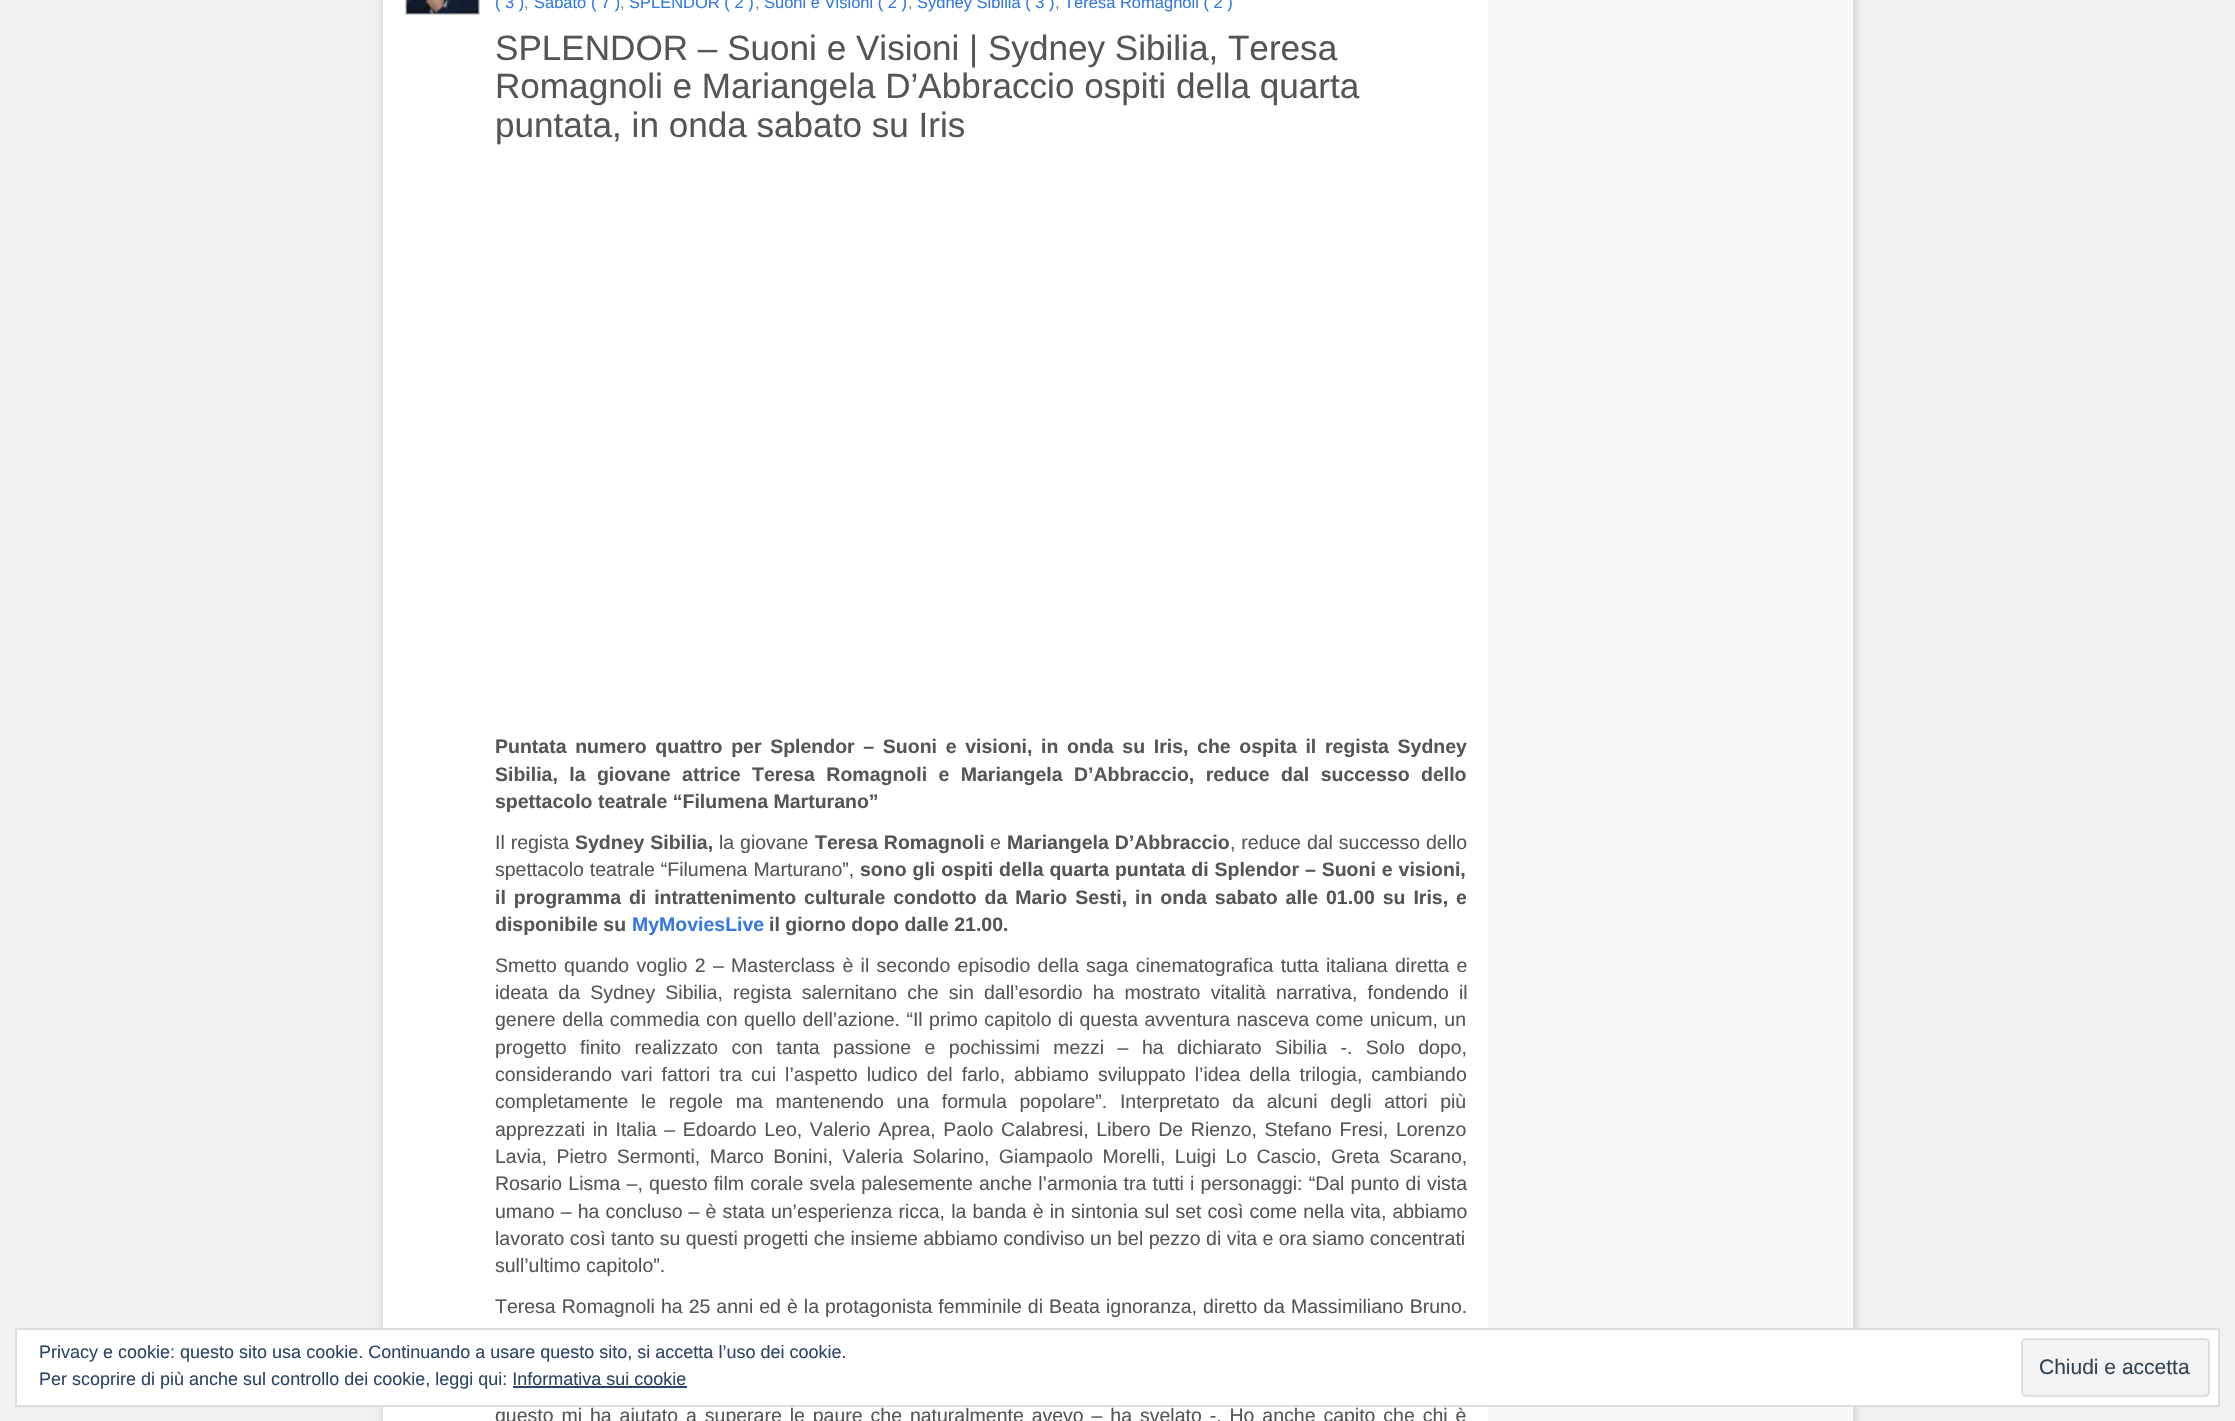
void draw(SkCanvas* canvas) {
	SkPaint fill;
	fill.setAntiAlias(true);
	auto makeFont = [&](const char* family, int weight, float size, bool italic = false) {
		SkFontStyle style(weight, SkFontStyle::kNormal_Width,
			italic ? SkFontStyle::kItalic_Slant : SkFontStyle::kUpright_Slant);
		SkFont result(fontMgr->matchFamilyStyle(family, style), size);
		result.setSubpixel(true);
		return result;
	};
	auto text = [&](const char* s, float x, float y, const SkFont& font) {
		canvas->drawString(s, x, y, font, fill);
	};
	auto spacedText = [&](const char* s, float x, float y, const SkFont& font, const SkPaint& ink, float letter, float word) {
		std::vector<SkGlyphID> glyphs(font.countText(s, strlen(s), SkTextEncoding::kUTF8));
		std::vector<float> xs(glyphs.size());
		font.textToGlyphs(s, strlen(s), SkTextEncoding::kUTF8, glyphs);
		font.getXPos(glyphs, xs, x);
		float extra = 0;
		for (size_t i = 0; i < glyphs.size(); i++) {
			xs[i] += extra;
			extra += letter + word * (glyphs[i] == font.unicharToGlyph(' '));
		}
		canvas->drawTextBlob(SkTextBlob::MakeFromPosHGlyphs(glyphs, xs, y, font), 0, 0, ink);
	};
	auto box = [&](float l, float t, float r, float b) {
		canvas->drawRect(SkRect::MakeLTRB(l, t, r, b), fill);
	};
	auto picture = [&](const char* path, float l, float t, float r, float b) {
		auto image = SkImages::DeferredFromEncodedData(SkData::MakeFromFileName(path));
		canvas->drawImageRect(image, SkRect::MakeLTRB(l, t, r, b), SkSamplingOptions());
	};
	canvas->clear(0xFFF1F1F1);
	fill.setColor(0x33000000);
	fill.setMaskFilter(SkMaskFilter::MakeBlur(kNormal_SkBlurStyle, 4));
	canvas->drawRect(SkRect::MakeLTRB(384, -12, 1854, 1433), fill);
	fill.setMaskFilter(nullptr);
	fill.setColor(0xFFFFFFFF);
	box(383, 0, 1853, 1421);
	fill.setColor(0xFFF7F7F7);
	box(1488, 0, 1851, 1421);
	fill.setStyle(SkPaint::kStroke_Style);
	fill.setStrokeWidth(2);
	fill.setColor(0xFFCCCCCC);
	canvas->drawRect(SkRect::MakeLTRB(406, -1, 479, 14), fill);
	picture("image0.png", 406, 0, 479, 14);
	fill.setStyle(SkPaint::kFill_Style);
	fill.setColor(0xFFFFFFFF);
	canvas->drawRect(SkRect::MakeLTRB(16, 1329, 2219, 1406), fill);
	fill.setStyle(SkPaint::kStroke_Style);
	fill.setColor(0xFFDEDEDE);
	canvas->drawRect(SkRect::MakeLTRB(16, 1329, 2219, 1406), fill);
	fill.setStyle(SkPaint::kFill_Style);
	fill.setColor(0xFFF3F3F3);
	canvas->drawRoundRect(SkRect::MakeLTRB(2022, 1339, 2209, 1396), 4, 4, fill);
	fill.setStyle(SkPaint::kStroke_Style);
	fill.setColor(0xFFDEDEDE);
	canvas->drawRoundRect(SkRect::MakeLTRB(2022, 1339, 2209, 1396), 4, 4, fill);
	fill.setStyle(SkPaint::kFill_Style);
	fill.setColor(0xFF2E4467);
	box(513, 1386, 687, 1388);
	auto font1 = makeFont("Liberation Sans", 400, 16.5f);
	fill.setColor(0xFF3478E3);
	text("( 3 )", 495, 8, font1);
	fill.setColor(0xFF888888);
	text(",", 524, 8, font1);
	fill.setColor(0xFF3478E3);
	text("Sabato ( 7 )", 534, 8, font1);
	fill.setColor(0xFF888888);
	text(",", 620, 8, font1);
	fill.setColor(0xFF3478E3);
	text("SPLENDOR ( 2 )", 629, 8, font1);
	fill.setColor(0xFF888888);
	text(",", 755, 8, font1);
	fill.setColor(0xFF3478E3);
	text("Suoni e Visioni ( 2 )", 764, 8, font1);
	fill.setColor(0xFF888888);
	text(",", 908, 8, font1);
	fill.setColor(0xFF3478E3);
	text("Sydney Sibilia ( 3 )", 917, 8, font1);
	fill.setColor(0xFF888888);
	text(",", 1055, 8, font1);
	fill.setColor(0xFF3478E3);
	text("Teresa Romagnoli ( 2 )", 1064, 8, font1);
	auto font2 = makeFont("Liberation Sans", 400, 35.1f);
	fill.setColor(0xFF555555);
	text("SPLENDOR – Suoni e Visioni | Sydney Sibilia, Teresa", 495, 60, font2);
	text("Romagnoli e Mariangela D’Abbraccio ospiti della quarta", 495, 98, font2);
	text("puntata, in onda sabato su Iris", 495, 137, font2);
	auto font3 = makeFont("Liberation Sans", 700, 19.5f);
	spacedText("Puntata numero quattro per Splendor – Suoni e visioni, in onda su Iris, che ospita il regista Sydney", 495, 753, font3, fill, 0, 3.25f);
	spacedText("Sibilia, la giovane attrice Teresa Romagnoli e Mariangela D’Abbraccio, reduce dal successo dello", 495, 781, font3, fill, 0, 6);
	text("spettacolo teatrale “Filumena Marturano”", 495, 808, font3);
	auto font4 = makeFont("Liberation Sans", 400, 19.5f);
	spacedText("Il regista", 495, 849, font4, fill, 0, 0.5f);
	spacedText("Sydney Sibilia,", 575, 849, font3, fill, 0, 0.5f);
	spacedText("la giovane", 719, 849, font4, fill, 0, 0.5f);
	spacedText("Teresa Romagnoli", 815, 849, font3, fill, 0, 0.5f);
	text("e", 990, 849, font4);
	spacedText("Mariangela D’Abbraccio", 1007, 849, font3, fill, 0, 0.5f);
	spacedText(", reduce dal successo dello", 1230, 849, font4, fill, 0, 0.5f);
	spacedText("spettacolo teatrale “Filumena Marturano”,", 495, 876, font4, fill, 0, 0.5f);
	spacedText("sono gli ospiti della quarta puntata di Splendor – Suoni e visioni,", 860, 876, font3, fill, 0, 0.5f);
	spacedText("il programma di intrattenimento culturale condotto da Mario Sesti, in onda sabato alle 01.00 su Iris, e", 495, 904, font3, fill, 0, 2.5f);
	text("disponibile su", 495, 931, font3);
	fill.setColor(0xFF3478E3);
	text("MyMoviesLive", 632, 931, font3);
	fill.setColor(0xFF555555);
	text("il giorno dopo dalle 21.00.", 769, 931, font3);
	spacedText("Smetto quando voglio 2 – Masterclass è il secondo episodio della saga cinematografica tutta italiana diretta e", 495, 972, font4, fill, 0, 1.9f);
	spacedText("ideata da Sydney Sibilia, regista salernitano che sin dall’esordio ha mostrato vitalità narrativa, fondendo il", 495, 999, font4, fill, 0, 4.75f);
	spacedText("genere della commedia con quello dell’azione. “Il primo capitolo di questa avventura nasceva come unicum, un", 495, 1026, font4, fill, 0, 1);
	spacedText("progetto finito realizzato con tanta passione e pochissimi mezzi – ha dichiarato Sibilia -. Solo dopo,", 495, 1054, font4, fill, 0, 8);
	spacedText("considerando vari fattori tra cui l’aspetto ludico del farlo, abbiamo sviluppato l’idea della trilogia, cambiando", 495, 1081, font4, fill, 0, 3.6f);
	spacedText("completamente le regole ma mantenendo una formula popolare”. Interpretato da alcuni degli attori più", 495, 1108, font4, fill, 0, 7.25f);
	spacedText("apprezzati in Italia – Edoardo Leo, Valerio Aprea, Paolo Calabresi, Libero De Rienzo, Stefano Fresi, Lorenzo", 495, 1136, font4, fill, 0, 2.25f);
	spacedText("Lavia, Pietro Sermonti, Marco Bonini, Valeria Solarino, Giampaolo Morelli, Luigi Lo Cascio, Greta Scarano,", 495, 1163, font4, fill, 0, 4);
	spacedText("Rosario Lisma –, questo film corale svela palesemente anche l’armonia tra tutti i personaggi: “Dal punto di vista", 495, 1190, font4, fill, 0, 0.75f);
	spacedText("umano – ha concluso – è stata un’esperienza ricca, la banda è in sintonia sul set così come nella vita, abbiamo", 495, 1218, font4, fill, 0, 0.7f);
	text("lavorato così tanto su questi progetti che insieme abbiamo condiviso un bel pezzo di vita e ora siamo concentrati", 495, 1245, font4);
	text("sull’ultimo capitolo”.", 495, 1272, font4);
	spacedText("Teresa Romagnoli ha 25 anni ed è la protagonista femminile di Beata ignoranza, diretto da Massimiliano Bruno.", 495, 1313, font4, fill, 0, 0.6f);
	spacedText("questo mi ha aiutato a superare le paure che naturalmente avevo – ha svelato -. Ho anche capito che chi è", 495, 1422, font4, fill, 0, 2.5f);
	auto font5 = makeFont("Liberation Sans", 400, 18);
	fill.setColor(0xFF2E4467);
	text("Privacy e cookie: questo sito usa cookie. Continuando a usare questo sito, si accetta l’uso dei cookie.", 39, 1358, font5);
	auto font6 = makeFont("Liberation Sans", 400, 21);
	fill.setColor(0xFF2E4453);
	text("Chiudi e accetta", 2039, 1374, font6);
	fill.setColor(0xFF2E4467);
	text("Per scoprire di più anche sul controllo dei cookie, leggi qui: Informativa sui cookie", 39, 1385, font5);
}
